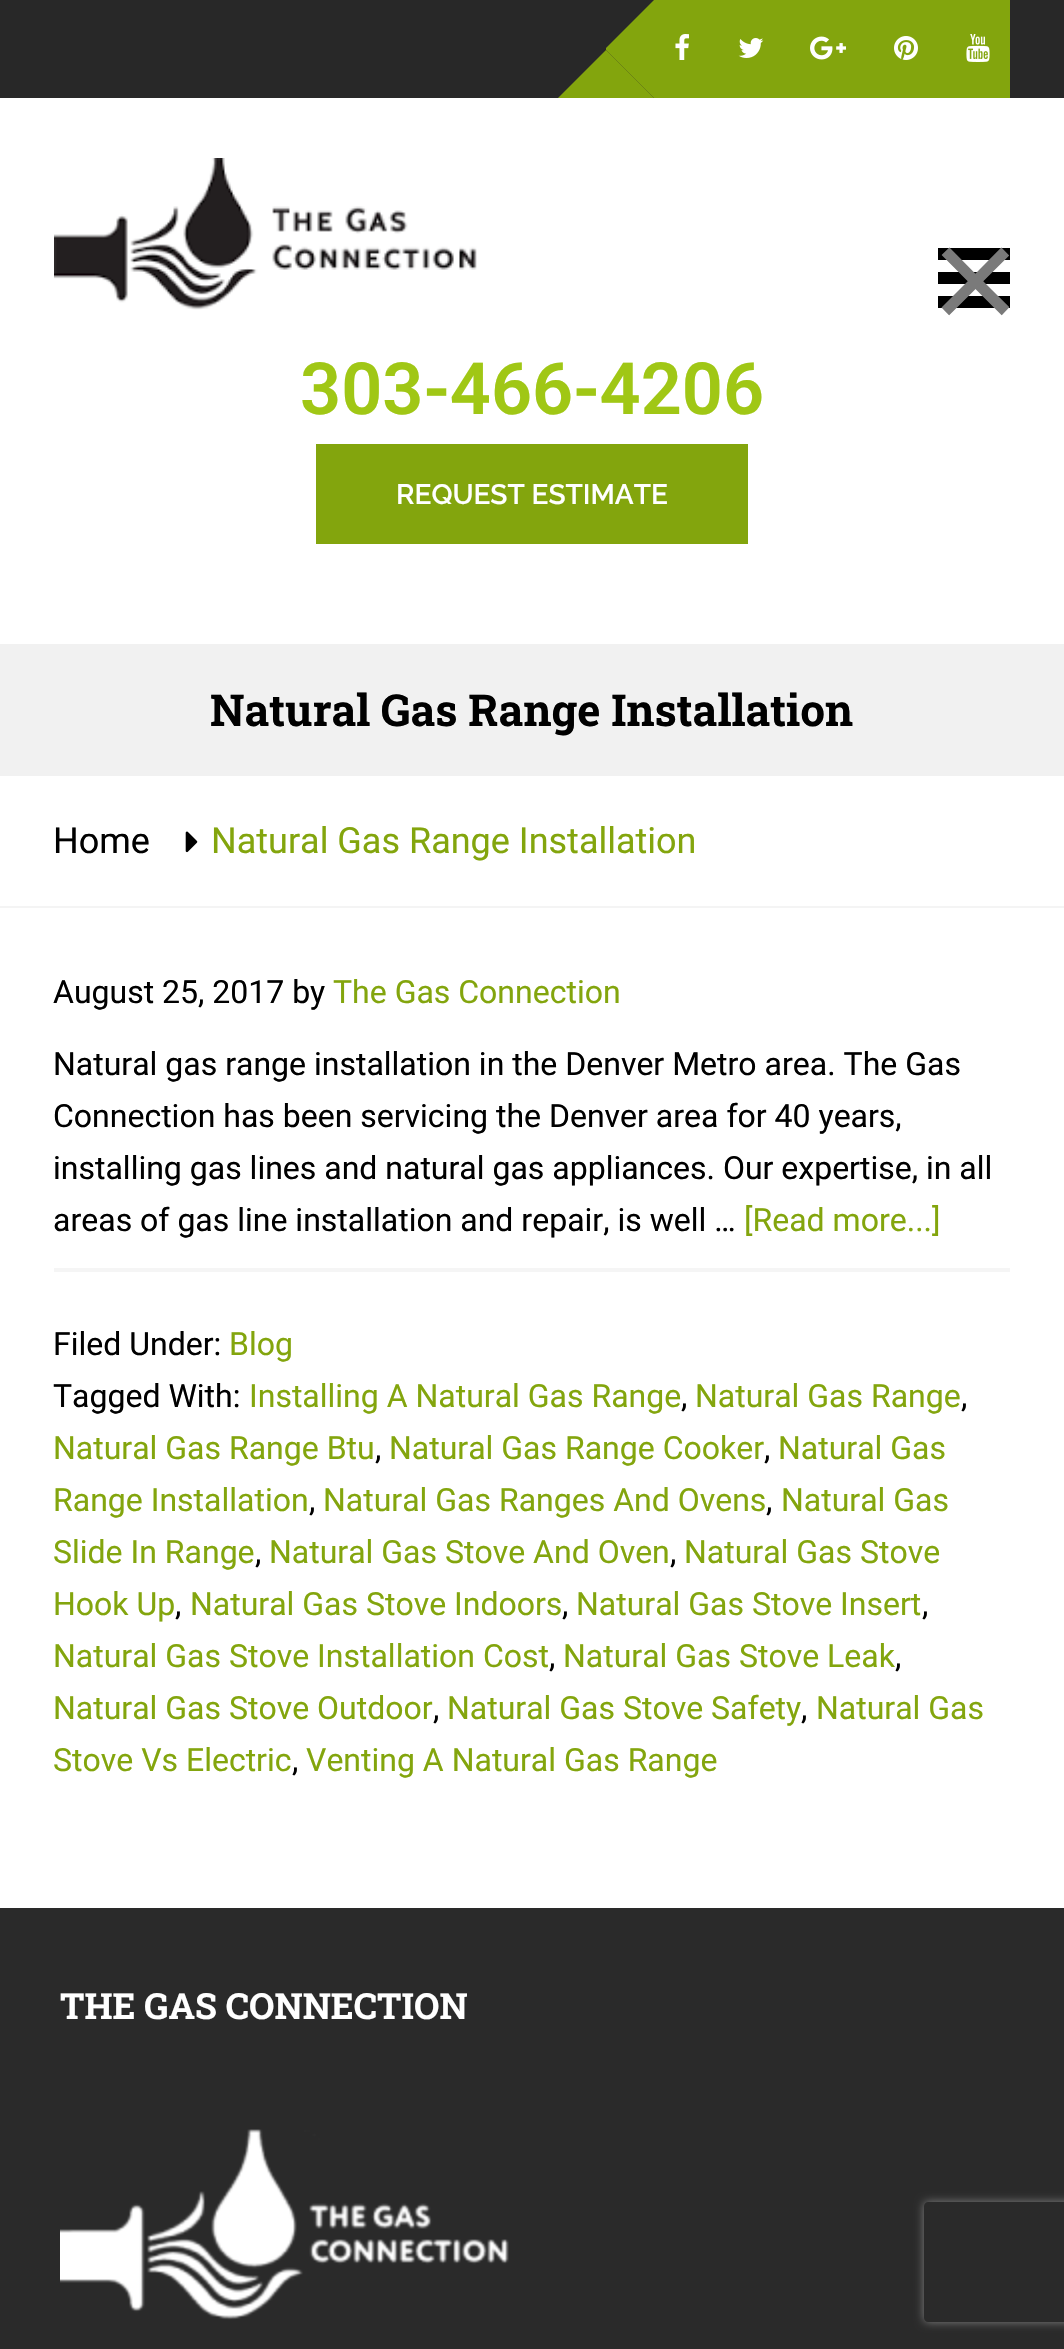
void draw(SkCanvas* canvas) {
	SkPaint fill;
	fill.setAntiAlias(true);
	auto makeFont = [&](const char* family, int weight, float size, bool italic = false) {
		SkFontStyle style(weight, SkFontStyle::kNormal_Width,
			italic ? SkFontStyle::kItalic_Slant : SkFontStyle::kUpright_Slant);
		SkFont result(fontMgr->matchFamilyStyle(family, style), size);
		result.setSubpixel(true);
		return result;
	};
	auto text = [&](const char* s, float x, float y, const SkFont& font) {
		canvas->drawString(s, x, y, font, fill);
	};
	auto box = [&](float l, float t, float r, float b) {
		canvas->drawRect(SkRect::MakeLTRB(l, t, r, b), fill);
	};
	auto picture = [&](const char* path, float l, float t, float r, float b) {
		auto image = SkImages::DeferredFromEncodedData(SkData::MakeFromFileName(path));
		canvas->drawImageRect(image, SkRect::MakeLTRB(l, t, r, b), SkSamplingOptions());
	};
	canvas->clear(0xFFFFFFFF);
	fill.setColor(0xFF282828);
	box(0, 0, 1064, 98);
	fill.setColor(0xFF83A50D);
	box(654, 0, 1010, 98);
	canvas->drawPath(SkPathBuilder().moveTo(654, 0).lineTo(654, 98).lineTo(606, 50).lineTo(606, 48).close().detach(), fill);
	canvas->drawPath(SkPathBuilder().moveTo(654, 98).lineTo(558, 98).lineTo(606, 50).close().detach(), fill);
	picture("image0.png", 675, 34, 689, 60);
	picture("image1.png", 738, 38, 764, 58);
	picture("image2.png", 810, 36, 846, 60);
	picture("image3.png", 894, 36, 918, 60);
	picture("image4.png", 966, 34, 990, 62);
	fill.setColor(0xFF000000);
	box(938, 248, 1010, 260);
	box(938, 272, 1010, 284);
	box(938, 296, 1010, 308);
	picture("image5.png", 54, 158, 477, 310);
	fill.setColor(0xFF83A50D);
	box(316, 444, 748, 544);
	fill.setColor(0xFFF1F1F1);
	box(0, 644, 1064, 776);
	fill.setColor(0xFFF4F4F4);
	box(0, 906, 1064, 908);
	picture("image6.png", 185, 831, 198, 853);
	fill.setColor(0xFFF5F5F5);
	box(54, 1268, 1010, 1272);
	fill.setColor(0xFF2A2A2A);
	box(0, 1908, 1064, 2349);
	picture("image7.png", 60, 2129, 509, 2320);
	canvas->save();
	canvas->clipPath(SkPathBuilder(SkPathFillType::kEvenOdd).moveTo(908, 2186).lineTo(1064, 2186).lineTo(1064, 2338).lineTo(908, 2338).close().moveTo(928, 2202).lineTo(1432, 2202).cubicTo(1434, 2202, 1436, 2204, 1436, 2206).lineTo(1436, 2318).cubicTo(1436, 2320, 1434, 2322, 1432, 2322).lineTo(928, 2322).cubicTo(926, 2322, 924, 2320, 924, 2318).lineTo(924, 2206).cubicTo(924, 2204, 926, 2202, 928, 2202).close().detach(), true);
	fill.setColor(0xFF808080);
	fill.setMaskFilter(SkMaskFilter::MakeBlur(kNormal_SkBlurStyle, 5));
	canvas->drawRoundRect(SkRect::MakeLTRB(924, 2202, 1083, 2322), 4, 4, fill);
	fill.setMaskFilter(nullptr);
	canvas->restore();
	auto font1 = makeFont("Liberation Sans", 400, 152);
	fill.setColor(0xFF7A7A7A);
	text("×", 931, 332, font1);
	auto font2 = makeFont("Roboto", 600, 72);
	fill.setColor(0xFFA0C715);
	text("303-466-4206", 300, 414, font2);
	auto font3 = makeFont("Raleway", 600, 28);
	fill.setColor(0xFFFFFFFF);
	text("REQUEST ESTIMATE", 396, 504, font3);
	auto font4 = makeFont("Roboto Slab", 700, 44);
	fill.setColor(0xFF000000);
	text("Natural Gas Range Installation", 210, 726, font4);
	auto font5 = makeFont("Roboto", 400, 36);
	text("Home", 53, 853, font5);
	fill.setColor(0xFF83A50D);
	text("Natural Gas Range Installation", 211, 853, font5);
	auto font6 = makeFont("Roboto", 400, 32);
	fill.setColor(0xFF000000);
	text("August 25, 2017 by", 53, 1003, font6);
	fill.setColor(0xFF83A50D);
	text("The Gas Connection", 333, 1003, font6);
	fill.setColor(0xFF000000);
	text("Natural gas range installation in the Denver Metro area. The Gas", 53, 1075, font6);
	text("Connection has been servicing the Denver area for 40 years,", 53, 1127, font6);
	text("installing gas lines and natural gas appliances. Our expertise, in all", 53, 1179, font6);
	text("areas of gas line installation and repair, is well …", 53, 1231, font6);
	fill.setColor(0xFF83A50D);
	text("[Read more...]", 744, 1231, font6);
	fill.setColor(0xFF000000);
	text("Filed Under:", 53, 1355, font6);
	fill.setColor(0xFF83A50D);
	text("Blog", 229, 1355, font6);
	fill.setColor(0xFF000000);
	text("Tagged With:", 53, 1407, font6);
	fill.setColor(0xFF83A50D);
	text("Installing A Natural Gas Range", 249, 1407, font6);
	fill.setColor(0xFF000000);
	text(",", 681, 1407, font6);
	fill.setColor(0xFF83A50D);
	text("Natural Gas Range", 695, 1407, font6);
	fill.setColor(0xFF000000);
	text(",", 961, 1407, font6);
	fill.setColor(0xFF83A50D);
	text("Natural Gas Range Btu", 53, 1459, font6);
	fill.setColor(0xFF000000);
	text(",", 375, 1459, font6);
	fill.setColor(0xFF83A50D);
	text("Natural Gas Range Cooker", 389, 1459, font6);
	fill.setColor(0xFF000000);
	text(",", 764, 1459, font6);
	fill.setColor(0xFF83A50D);
	text("Natural Gas", 778, 1459, font6);
	text("Range Installation", 53, 1511, font6);
	fill.setColor(0xFF000000);
	text(",", 309, 1511, font6);
	fill.setColor(0xFF83A50D);
	text("Natural Gas Ranges And Ovens", 323, 1511, font6);
	fill.setColor(0xFF000000);
	text(",", 766, 1511, font6);
	fill.setColor(0xFF83A50D);
	text("Natural Gas", 781, 1511, font6);
	text("Slide In Range", 53, 1563, font6);
	fill.setColor(0xFF000000);
	text(",", 255, 1563, font6);
	fill.setColor(0xFF83A50D);
	text("Natural Gas Stove And Oven", 269, 1563, font6);
	fill.setColor(0xFF000000);
	text(",", 670, 1563, font6);
	fill.setColor(0xFF83A50D);
	text("Natural Gas Stove", 684, 1563, font6);
	text("Hook Up", 53, 1615, font6);
	fill.setColor(0xFF000000);
	text(",", 175, 1615, font6);
	fill.setColor(0xFF83A50D);
	text("Natural Gas Stove Indoors", 190, 1615, font6);
	fill.setColor(0xFF000000);
	text(",", 562, 1615, font6);
	fill.setColor(0xFF83A50D);
	text("Natural Gas Stove Insert", 576, 1615, font6);
	fill.setColor(0xFF000000);
	text(",", 922, 1615, font6);
	fill.setColor(0xFF83A50D);
	text("Natural Gas Stove Installation Cost", 53, 1667, font6);
	fill.setColor(0xFF000000);
	text(",", 549, 1667, font6);
	fill.setColor(0xFF83A50D);
	text("Natural Gas Stove Leak", 563, 1667, font6);
	fill.setColor(0xFF000000);
	text(",", 895, 1667, font6);
	fill.setColor(0xFF83A50D);
	text("Natural Gas Stove Outdoor", 53, 1719, font6);
	fill.setColor(0xFF000000);
	text(",", 433, 1719, font6);
	fill.setColor(0xFF83A50D);
	text("Natural Gas Stove Safety", 447, 1719, font6);
	fill.setColor(0xFF000000);
	text(",", 801, 1719, font6);
	fill.setColor(0xFF83A50D);
	text("Natural Gas", 816, 1719, font6);
	text("Stove Vs Electric", 53, 1771, font6);
	fill.setColor(0xFF000000);
	text(",", 292, 1771, font6);
	fill.setColor(0xFF83A50D);
	text("Venting A Natural Gas Range", 306, 1771, font6);
	auto font7 = makeFont("Roboto Slab", 700, 36);
	fill.setColor(0xFFFFFFFF);
	text("THE GAS CONNECTION", 60, 2019, font7);
}
